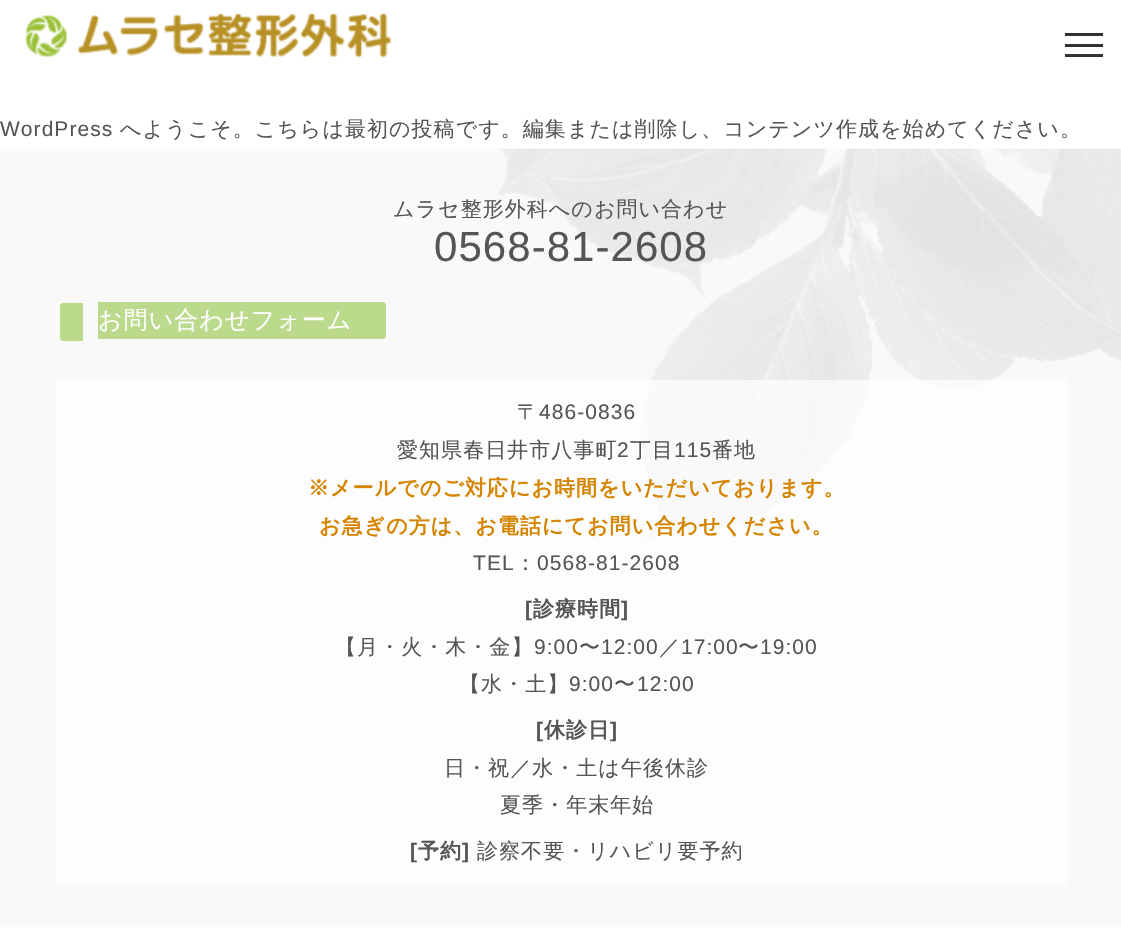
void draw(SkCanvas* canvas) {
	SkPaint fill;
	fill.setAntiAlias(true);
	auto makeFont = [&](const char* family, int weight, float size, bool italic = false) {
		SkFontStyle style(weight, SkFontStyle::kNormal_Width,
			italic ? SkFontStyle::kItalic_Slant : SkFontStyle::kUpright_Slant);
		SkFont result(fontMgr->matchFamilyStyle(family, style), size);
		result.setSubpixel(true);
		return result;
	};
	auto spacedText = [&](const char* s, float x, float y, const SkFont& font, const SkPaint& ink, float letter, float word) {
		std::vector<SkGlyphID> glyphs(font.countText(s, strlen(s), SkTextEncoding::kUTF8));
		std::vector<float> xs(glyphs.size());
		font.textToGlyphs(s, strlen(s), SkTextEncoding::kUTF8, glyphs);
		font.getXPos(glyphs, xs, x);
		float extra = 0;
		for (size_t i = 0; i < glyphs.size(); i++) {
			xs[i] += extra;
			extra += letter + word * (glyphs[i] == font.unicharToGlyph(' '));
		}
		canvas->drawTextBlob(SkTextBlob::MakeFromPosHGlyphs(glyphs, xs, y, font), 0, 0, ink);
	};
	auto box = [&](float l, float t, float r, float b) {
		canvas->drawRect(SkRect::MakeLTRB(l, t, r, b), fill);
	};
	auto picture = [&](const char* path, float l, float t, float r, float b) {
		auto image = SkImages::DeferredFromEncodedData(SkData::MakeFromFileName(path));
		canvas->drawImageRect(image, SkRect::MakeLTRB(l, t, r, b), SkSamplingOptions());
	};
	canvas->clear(0xFFFFFFFF);
	picture("image0.png", 25, 13, 392, 59);
	fill.setColor(0xFF333333);
	box(1065, 44, 1103, 47);
	box(1065, 33, 1103, 36);
	box(1065, 54, 1103, 57);
	fill.setColor(0xFFF9F9F9);
	box(0, 149, 1121, 927);
	picture("image1.png", 498, 148, 1121, 547);
	fill.setColor(0xFFBBDA8C);
	canvas->drawPath(SkPathBuilder().moveTo(63, 303).lineTo(83, 303).lineTo(83, 341).lineTo(63, 341).cubicTo(61.5f, 341, 60, 339.5f, 60, 338).lineTo(60, 306).cubicTo(60, 304.5f, 61.5f, 303, 63, 303).close().detach(), fill);
	canvas->drawPath(SkPathBuilder().moveTo(98, 302).lineTo(383, 302).cubicTo(384.5f, 302, 386, 303.5f, 386, 305).lineTo(386, 336).cubicTo(386, 337.5f, 384.5f, 339, 383, 339).lineTo(98, 339).close().detach(), fill);
	fill.setColor(0xB3FFFFFF);
	box(56, 380, 1067, 885);
	auto font1 = makeFont("Liberation Sans", 400, 21);
	fill.setColor(0xFF555555);
	spacedText("WordPress", 0, 136, font1, fill, 1.05f, 0);
	auto font2 = makeFont("WenQuanYi Zen Hei", 500, 21);
	spacedText("へようこそ。こちらは最初の投稿です。編集または削除し、コンテンツ作成を始めてください。", 120, 136, font2, fill, 1.05f, 0);
	spacedText("ムラセ整形外科へのお問い合わせ", 393, 216, font2, fill, 1.05f, 0);
	auto font3 = makeFont("Liberation Sans", 400, 42);
	spacedText("0568-81-2608", 434, 261, font3, fill, 1.05f, 0);
	auto font4 = makeFont("WenQuanYi Zen Hei", 500, 24);
	fill.setColor(0xFFFFFFFF);
	spacedText("お問い合わせフォーム", 98, 328, font4, fill, 1.05f, 0);
	fill.setColor(0xFF555555);
	spacedText("〒", 517, 419, font2, fill, 1.05f, 0);
	spacedText("486-0836", 539, 419, font1, fill, 1.05f, 0);
	spacedText("愛知県春日井市八事町", 397, 457, font2, fill, 1.05f, 0);
	spacedText("2", 617, 457, font1, fill, 1.05f, 0);
	spacedText("丁目", 630, 457, font2, fill, 1.05f, 0);
	spacedText("115", 674, 457, font1, fill, 1.05f, 0);
	spacedText("番地", 712, 457, font2, fill, 1.05f, 0);
	auto font5 = makeFont("WenQuanYi Zen Hei", 700, 21);
	fill.setColor(0xFFD58400);
	spacedText("※メールでのご対応にお時間をいただいております。", 308, 495, font5, fill, 1.05f, 0);
	spacedText("お急ぎの方は、お電話にてお問い合わせください。", 319, 533, font5, fill, 1.05f, 0);
	fill.setColor(0xFF555555);
	spacedText("TEL", 473, 570, font1, fill, 1.05f, 0);
	spacedText("：", 515, 570, font2, fill, 1.05f, 0);
	spacedText("0568-81-2608", 537, 570, font1, fill, 1.05f, 0);
	auto font6 = makeFont("Liberation Sans", 700, 21);
	spacedText("[", 525, 616, font6, fill, 1.05f, 0);
	spacedText("診療時間", 533, 616, font5, fill, 1.05f, 0);
	spacedText("]", 621, 616, font6, fill, 1.05f, 0);
	spacedText("【月・火・木・金】", 335, 654, font2, fill, 1.05f, 0);
	spacedText("9:00", 534, 654, font1, fill, 1.05f, 0);
	spacedText("〜", 579, 654, font2, fill, 1.05f, 0);
	spacedText("12:00", 601, 654, font1, fill, 1.05f, 0);
	spacedText("／", 659, 654, font2, fill, 1.05f, 0);
	spacedText("17:00", 681, 654, font1, fill, 1.05f, 0);
	spacedText("〜", 738, 654, font2, fill, 1.05f, 0);
	spacedText("19:00", 760, 654, font1, fill, 1.05f, 0);
	spacedText("【水・土】", 459, 691, font2, fill, 1.05f, 0);
	spacedText("9:00", 569, 691, font1, fill, 1.05f, 0);
	spacedText("〜", 614, 691, font2, fill, 1.05f, 0);
	spacedText("12:00", 637, 691, font1, fill, 1.05f, 0);
	spacedText("[", 536, 737, font6, fill, 1.05f, 0);
	spacedText("休診日", 544, 737, font5, fill, 1.05f, 0);
	spacedText("]", 610, 737, font6, fill, 1.05f, 0);
	spacedText("日・祝／水・土は午後休診", 444, 775, font2, fill, 1.05f, 0);
	spacedText("夏季・年末年始", 500, 812, font2, fill, 1.05f, 0);
	spacedText("[", 410, 858, font6, fill, 1.05f, 0);
	spacedText("予約", 418, 858, font5, fill, 1.05f, 0);
	spacedText("]", 462, 858, font6, fill, 1.05f, 0);
	spacedText("診察不要・リハビリ要予約", 477, 858, font2, fill, 1.05f, 0);
}
